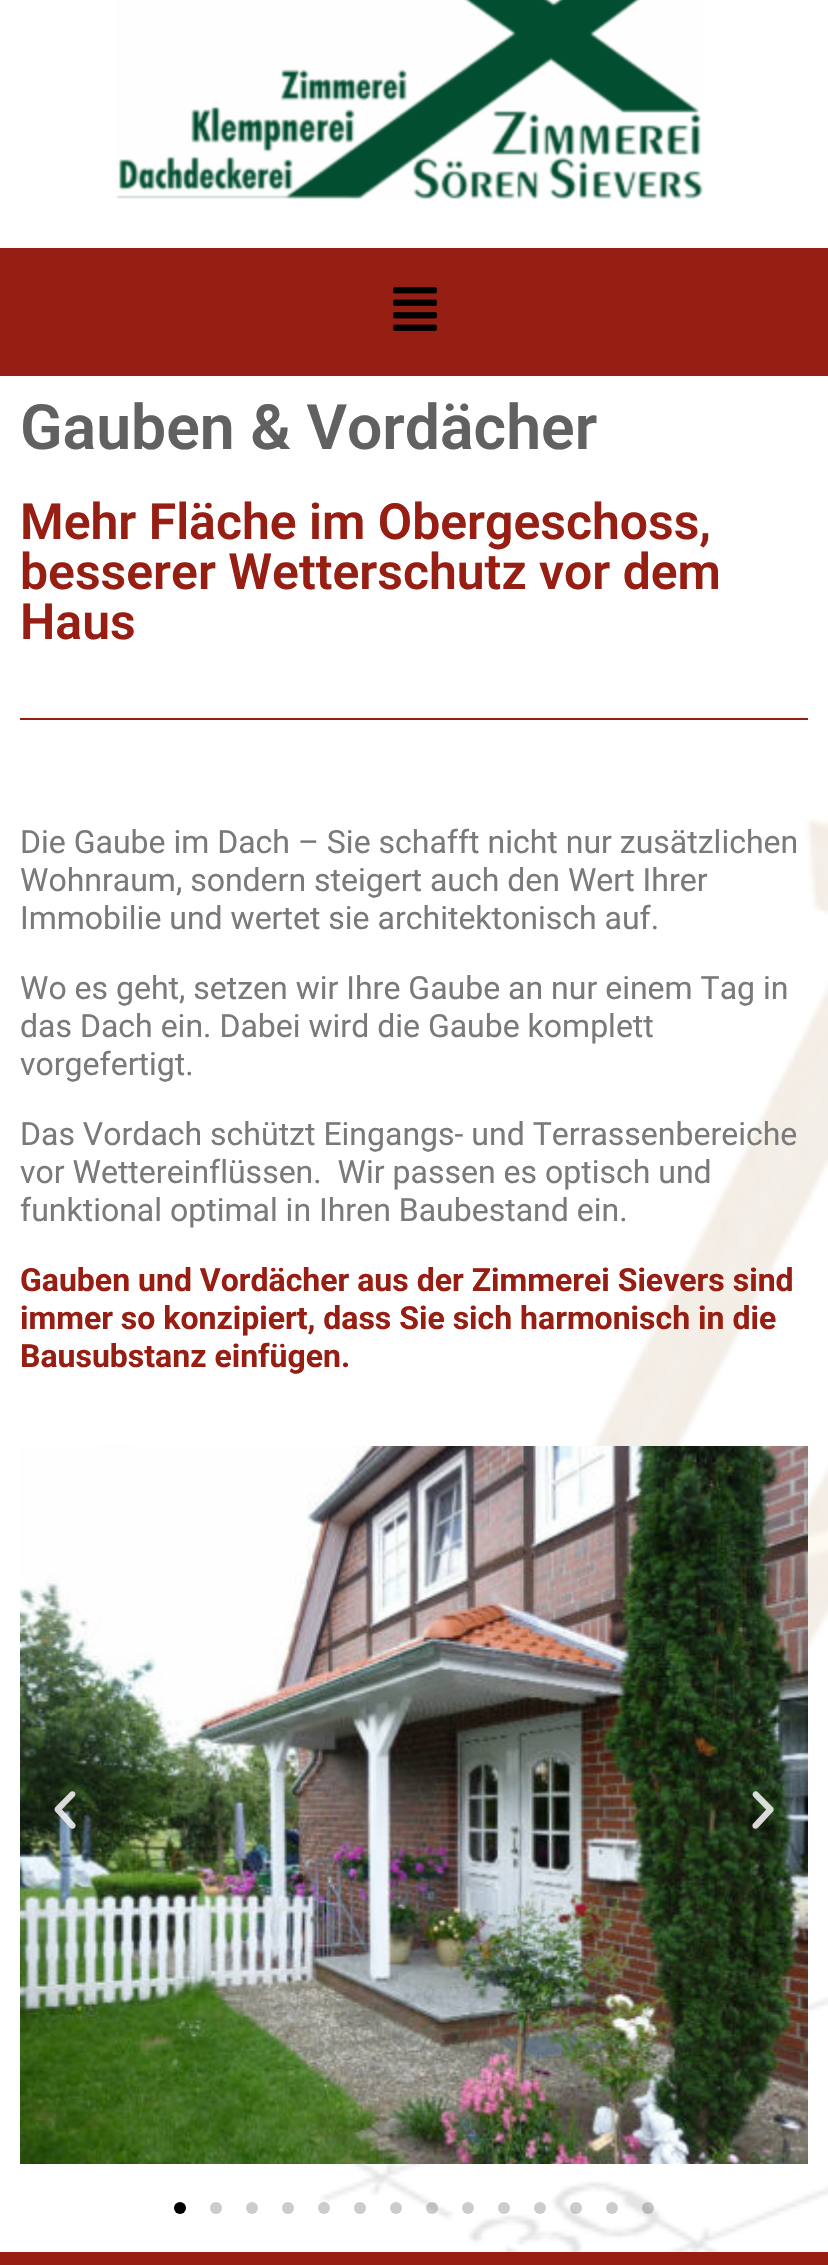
void draw(SkCanvas* canvas) {
	SkPaint fill;
	fill.setAntiAlias(true);
	auto makeFont = [&](const char* family, int weight, float size, bool italic = false) {
		SkFontStyle style(weight, SkFontStyle::kNormal_Width,
			italic ? SkFontStyle::kItalic_Slant : SkFontStyle::kUpright_Slant);
		SkFont result(fontMgr->matchFamilyStyle(family, style), size);
		result.setSubpixel(true);
		return result;
	};
	auto text = [&](const char* s, float x, float y, const SkFont& font) {
		canvas->drawString(s, x, y, font, fill);
	};
	auto box = [&](float l, float t, float r, float b) {
		canvas->drawRect(SkRect::MakeLTRB(l, t, r, b), fill);
	};
	auto picture = [&](const char* path, float l, float t, float r, float b) {
		auto image = SkImages::DeferredFromEncodedData(SkData::MakeFromFileName(path));
		canvas->drawImageRect(image, SkRect::MakeLTRB(l, t, r, b), SkSamplingOptions());
	};
	canvas->clear(0xFFFFFFFF);
	picture("image0.png", 303, 815, 828, 2252);
	picture("image1.png", 116, 0, 703, 200);
	fill.setColor(0xFF971E13);
	box(0, 248, 828, 376);
	picture("image2.png", 393, 287, 437, 331);
	box(20, 718, 808, 720);
	picture("image3.png", 20, 1446, 808, 2164);
	picture("image4.png", 54, 1791, 76, 1829);
	picture("image5.png", 752, 1791, 774, 1829);
	fill.setColor(0xFF000000);
	canvas->drawCircle(180, 2208, 6, fill);
	fill.setColor(0xFFCCCCCC);
	canvas->drawCircle(216, 2208, 6, fill);
	canvas->drawCircle(252, 2208, 6, fill);
	canvas->drawCircle(288, 2208, 6, fill);
	fill.setColor(0x33000000);
	canvas->drawCircle(324, 2208, 6, fill);
	fill.setColor(0xFFCCCCCC);
	canvas->drawCircle(360, 2208, 6, fill);
	canvas->drawCircle(396, 2208, 6, fill);
	fill.setColor(0x33000000);
	canvas->drawCircle(432, 2208, 6, fill);
	fill.setColor(0xFFCCCCCC);
	canvas->drawCircle(468, 2208, 6, fill);
	canvas->drawCircle(504, 2208, 6, fill);
	canvas->drawCircle(540, 2208, 6, fill);
	fill.setColor(0x33000000);
	canvas->drawCircle(576, 2208, 6, fill);
	fill.setColor(0xFFCCCCCC);
	canvas->drawCircle(612, 2208, 6, fill);
	fill.setColor(0x33000000);
	canvas->drawCircle(648, 2208, 6, fill);
	fill.setColor(0xFF971E13);
	box(0, 2252, 828, 2265);
	auto font1 = makeFont("Roboto", 600, 62.5f);
	fill.setColor(0xFF616161);
	text("Gauben & Vordächer", 20, 449, font1);
	auto font2 = makeFont("Roboto", 600, 49.9f);
	fill.setColor(0xFF971E13);
	text("Mehr Fläche im Obergeschoss,", 20, 539, font2);
	text("besserer Wetterschutz vor dem", 20, 589, font2);
	text("Haus", 20, 639, font2);
	auto font3 = makeFont("Roboto", 400, 32);
	fill.setColor(0xFF7A7A7A);
	text("Die Gaube im Dach – Sie schafft nicht nur zusätzlichen", 20, 853, font3);
	text("Wohnraum, sondern steigert auch den Wert Ihrer", 20, 891, font3);
	text("Immobilie und wertet sie architektonisch auf.", 20, 929, font3);
	text("Wo es geht, setzen wir Ihre Gaube an nur einem Tag in", 20, 999, font3);
	text("das Dach ein. Dabei wird die Gaube komplett", 20, 1037, font3);
	text("vorgefertigt.", 20, 1075, font3);
	text("Das Vordach schützt Eingangs- und Terrassenbereiche", 20, 1145, font3);
	text("vor Wettereinflüssen.  Wir passen es optisch und", 20, 1183, font3);
	text("funktional optimal in Ihren Baubestand ein.", 20, 1221, font3);
	auto font4 = makeFont("Roboto", 700, 32);
	fill.setColor(0xFF971E13);
	text("Gauben und Vordächer aus der Zimmerei Sievers sind", 20, 1291, font4);
	text("immer so konzipiert, dass Sie sich harmonisch in die", 20, 1329, font4);
	text("Bausubstanz einfügen.", 20, 1367, font4);
}
